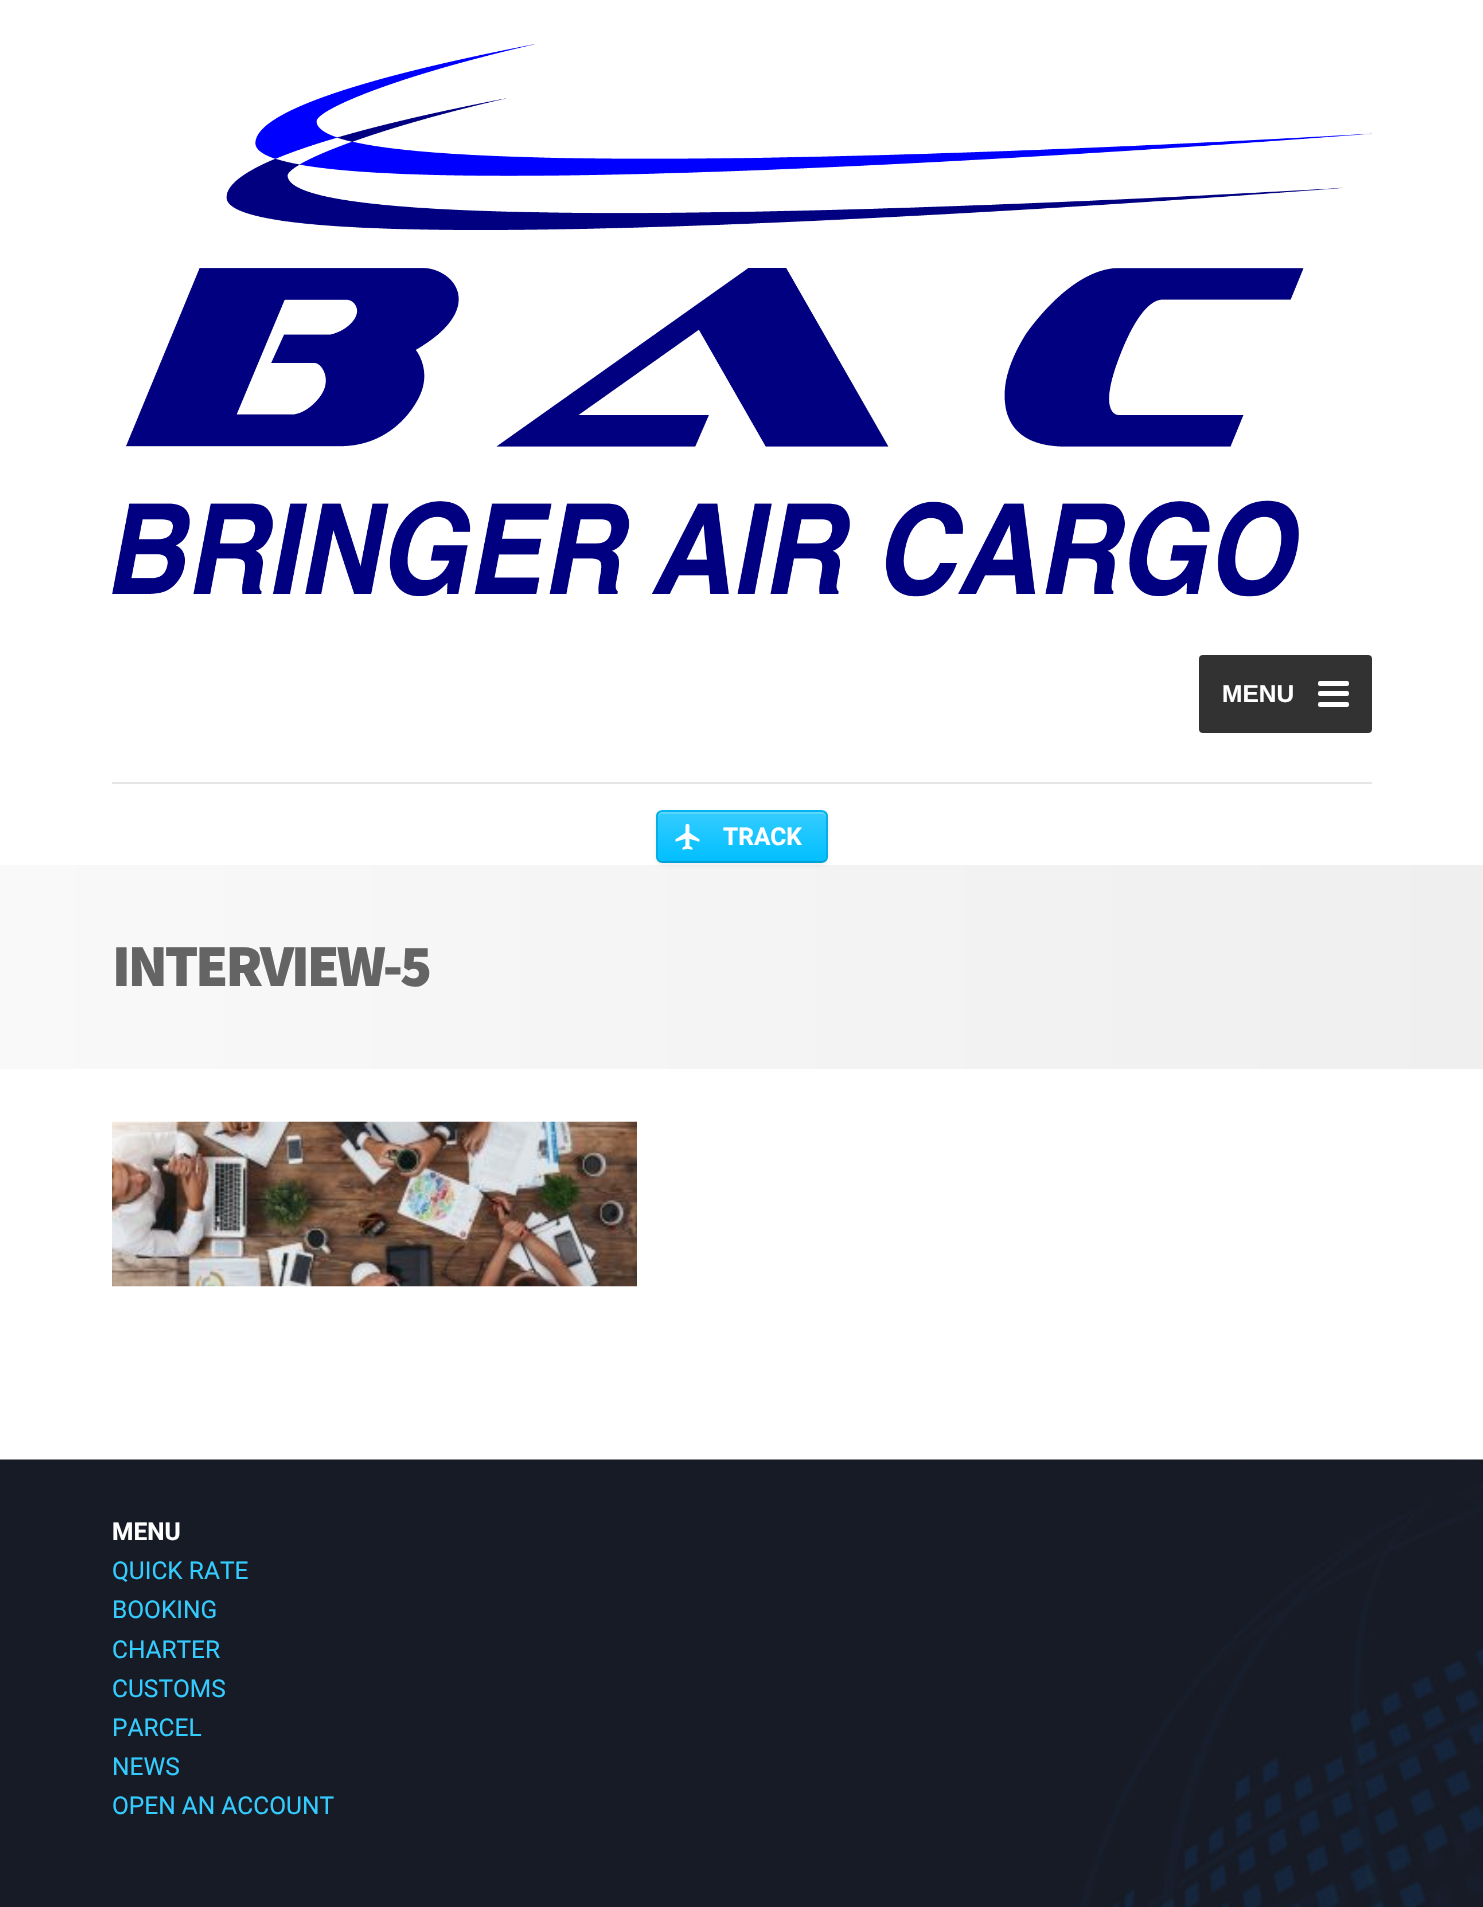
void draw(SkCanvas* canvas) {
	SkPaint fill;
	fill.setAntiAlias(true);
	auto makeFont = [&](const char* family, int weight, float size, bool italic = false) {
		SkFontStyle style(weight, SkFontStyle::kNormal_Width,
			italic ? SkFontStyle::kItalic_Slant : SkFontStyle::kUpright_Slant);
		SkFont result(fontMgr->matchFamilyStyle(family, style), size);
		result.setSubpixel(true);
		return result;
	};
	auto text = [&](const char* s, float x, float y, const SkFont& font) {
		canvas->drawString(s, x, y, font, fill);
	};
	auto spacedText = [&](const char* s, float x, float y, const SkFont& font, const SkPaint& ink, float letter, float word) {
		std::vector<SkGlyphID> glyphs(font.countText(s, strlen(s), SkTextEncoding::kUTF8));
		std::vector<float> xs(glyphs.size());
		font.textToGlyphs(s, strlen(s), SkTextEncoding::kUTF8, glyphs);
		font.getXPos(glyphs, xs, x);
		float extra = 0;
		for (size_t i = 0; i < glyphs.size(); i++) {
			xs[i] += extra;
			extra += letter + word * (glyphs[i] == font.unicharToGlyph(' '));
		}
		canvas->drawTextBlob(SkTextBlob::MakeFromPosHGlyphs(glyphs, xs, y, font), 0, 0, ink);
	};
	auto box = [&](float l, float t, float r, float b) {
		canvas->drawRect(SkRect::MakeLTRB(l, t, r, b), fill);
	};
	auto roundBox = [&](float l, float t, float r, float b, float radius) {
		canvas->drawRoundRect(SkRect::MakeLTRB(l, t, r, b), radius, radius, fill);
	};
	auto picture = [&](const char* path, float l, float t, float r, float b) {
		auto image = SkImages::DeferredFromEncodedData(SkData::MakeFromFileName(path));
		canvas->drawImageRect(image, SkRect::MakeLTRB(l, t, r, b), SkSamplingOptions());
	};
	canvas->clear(0xFFFFFFFF);
	fill.setColor(0xFFE6E6E6);
	box(112, 782, 1372, 784);
	picture("image0.png", 112, 43, 1372, 597);
	fill.setColor(0xFF323232);
	roundBox(1199, 655, 1372, 733, 4);
	fill.setColor(0xFFFFFFFF);
	roundBox(1318, 681, 1349, 686, 2);
	roundBox(1318, 691, 1349, 696, 2);
	roundBox(1318, 702, 1349, 707, 2);
	{
		const SkColor colors[] = {0xFFF9F9F9, 0xFFEFEFEF};
		const float stops[] = {0, 1};
		const SkPoint ends[] = {{0, 967}, {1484, 967}};
		fill.setShader(SkGradientShader::MakeLinear(ends, colors, stops, 2, SkTileMode::kClamp));
		fill.setAlpha(255);
	}
	box(0, 865, 1483, 1069);
	fill.setShader(nullptr);
	fill.setColor(0x12000000);
	fill.setMaskFilter(SkMaskFilter::MakeBlur(kNormal_SkBlurStyle, 2));
	canvas->drawRoundRect(SkRect::MakeLTRB(656, 812, 828, 865), 7, 7, fill);
	fill.setMaskFilter(nullptr);
	canvas->save();
	canvas->clipPath(SkPathBuilder().moveTo(663, 810).lineTo(821, 810).cubicTo(825, 810, 828, 813, 828, 817).lineTo(828, 856).cubicTo(828, 860, 825, 863, 821, 863).lineTo(663, 863).cubicTo(659, 863, 656, 860, 656, 856).lineTo(656, 817).cubicTo(656, 813, 659, 810, 663, 810).close().detach(), true);
	{
		const SkColor colors[] = {0xFF01BFFF, 0xFF34CCFF};
		const float stops[] = {0, 1};
		const SkPoint ends[] = {{658, 861}, {658, 812}};
		fill.setShader(SkGradientShader::MakeLinear(ends, colors, stops, 2, SkTileMode::kClamp));
		fill.setAlpha(255);
	}
	box(656, 812, 828, 861);
	canvas->restore();
	fill.setShader(nullptr);
	fill.setColor(0x33FFFFFF);
	canvas->drawPath(SkPathBuilder().moveTo(662, 814).lineTo(822, 814).cubicTo(824, 814, 826, 816, 826, 818).lineTo(826, 816).cubicTo(826, 814, 824, 812, 822, 812).lineTo(662, 812).cubicTo(660, 812, 658, 814, 658, 816).lineTo(658, 818).cubicTo(658, 816, 660, 814, 662, 814).close().detach(), fill);
	fill.setStyle(SkPaint::kStroke_Style);
	fill.setStrokeWidth(1.8f);
	fill.setColor(0xFF00B4F1);
	canvas->drawPath(SkPathBuilder().moveTo(658.5f, 812.5f).cubicTo(659.5f, 811.5f, 661, 811, 662.5f, 811).lineTo(821.5f, 811).cubicTo(823, 811, 824.5f, 811.5f, 825.5f, 812.5f).detach(), fill);
	fill.setColor(0xFF00ADE6);
	canvas->drawPath(SkPathBuilder().moveTo(825.5f, 812.5f).cubicTo(826.5f, 813.5f, 827, 815, 827, 816.5f).lineTo(827, 856.5f).cubicTo(827, 858, 826.5f, 859.5f, 825.5f, 860.5f).detach(), fill);
	fill.setColor(0xFF00A1D7);
	canvas->drawPath(SkPathBuilder().moveTo(825.5f, 860.5f).cubicTo(824.5f, 861.5f, 823, 862, 821.5f, 862).lineTo(662.5f, 862).cubicTo(661, 862, 659.5f, 861.5f, 658.5f, 860.5f).detach(), fill);
	fill.setColor(0xFF00ADE6);
	canvas->drawPath(SkPathBuilder().moveTo(658.5f, 860.5f).cubicTo(657.5f, 859.5f, 657, 858, 657, 856.5f).lineTo(657, 816.5f).cubicTo(657, 815, 657.5f, 813.5f, 658.5f, 812.5f).detach(), fill);
	picture("image1.png", 675, 823, 700, 850);
	picture("image2.png", 112, 1121, 637, 1287);
	picture("image3.png", 0, 1459, 1483, 1907);
	auto font1 = makeFont("Liberation Sans", 700, 24.5f);
	fill.setStyle(SkPaint::kFill_Style);
	fill.setColor(0xFFFFFFFF);
	text("MENU", 1222, 702, font1);
	auto font2 = makeFont("Roboto", 700, 24.5f);
	text("TRACK", 723, 845, font2);
	auto font3 = makeFont("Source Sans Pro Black", 900, 59.5f);
	fill.setColor(0xFF646464);
	spacedText("INTERVIEW-5", 112, 986, font3, fill, -3, 0);
	fill.setColor(0xFFFFFFFF);
	text("MENU", 112, 1540, font2);
	auto font4 = makeFont("Roboto", 400, 24.5f);
	fill.setColor(0xFF34CCFF);
	text("QUICK RATE", 112, 1579, font4);
	text("BOOKING", 112, 1618, font4);
	text("CHARTER", 112, 1658, font4);
	text("CUSTOMS", 112, 1697, font4);
	text("PARCEL", 112, 1736, font4);
	text("NEWS", 112, 1775, font4);
	text("OPEN AN ACCOUNT", 112, 1814, font4);
}
